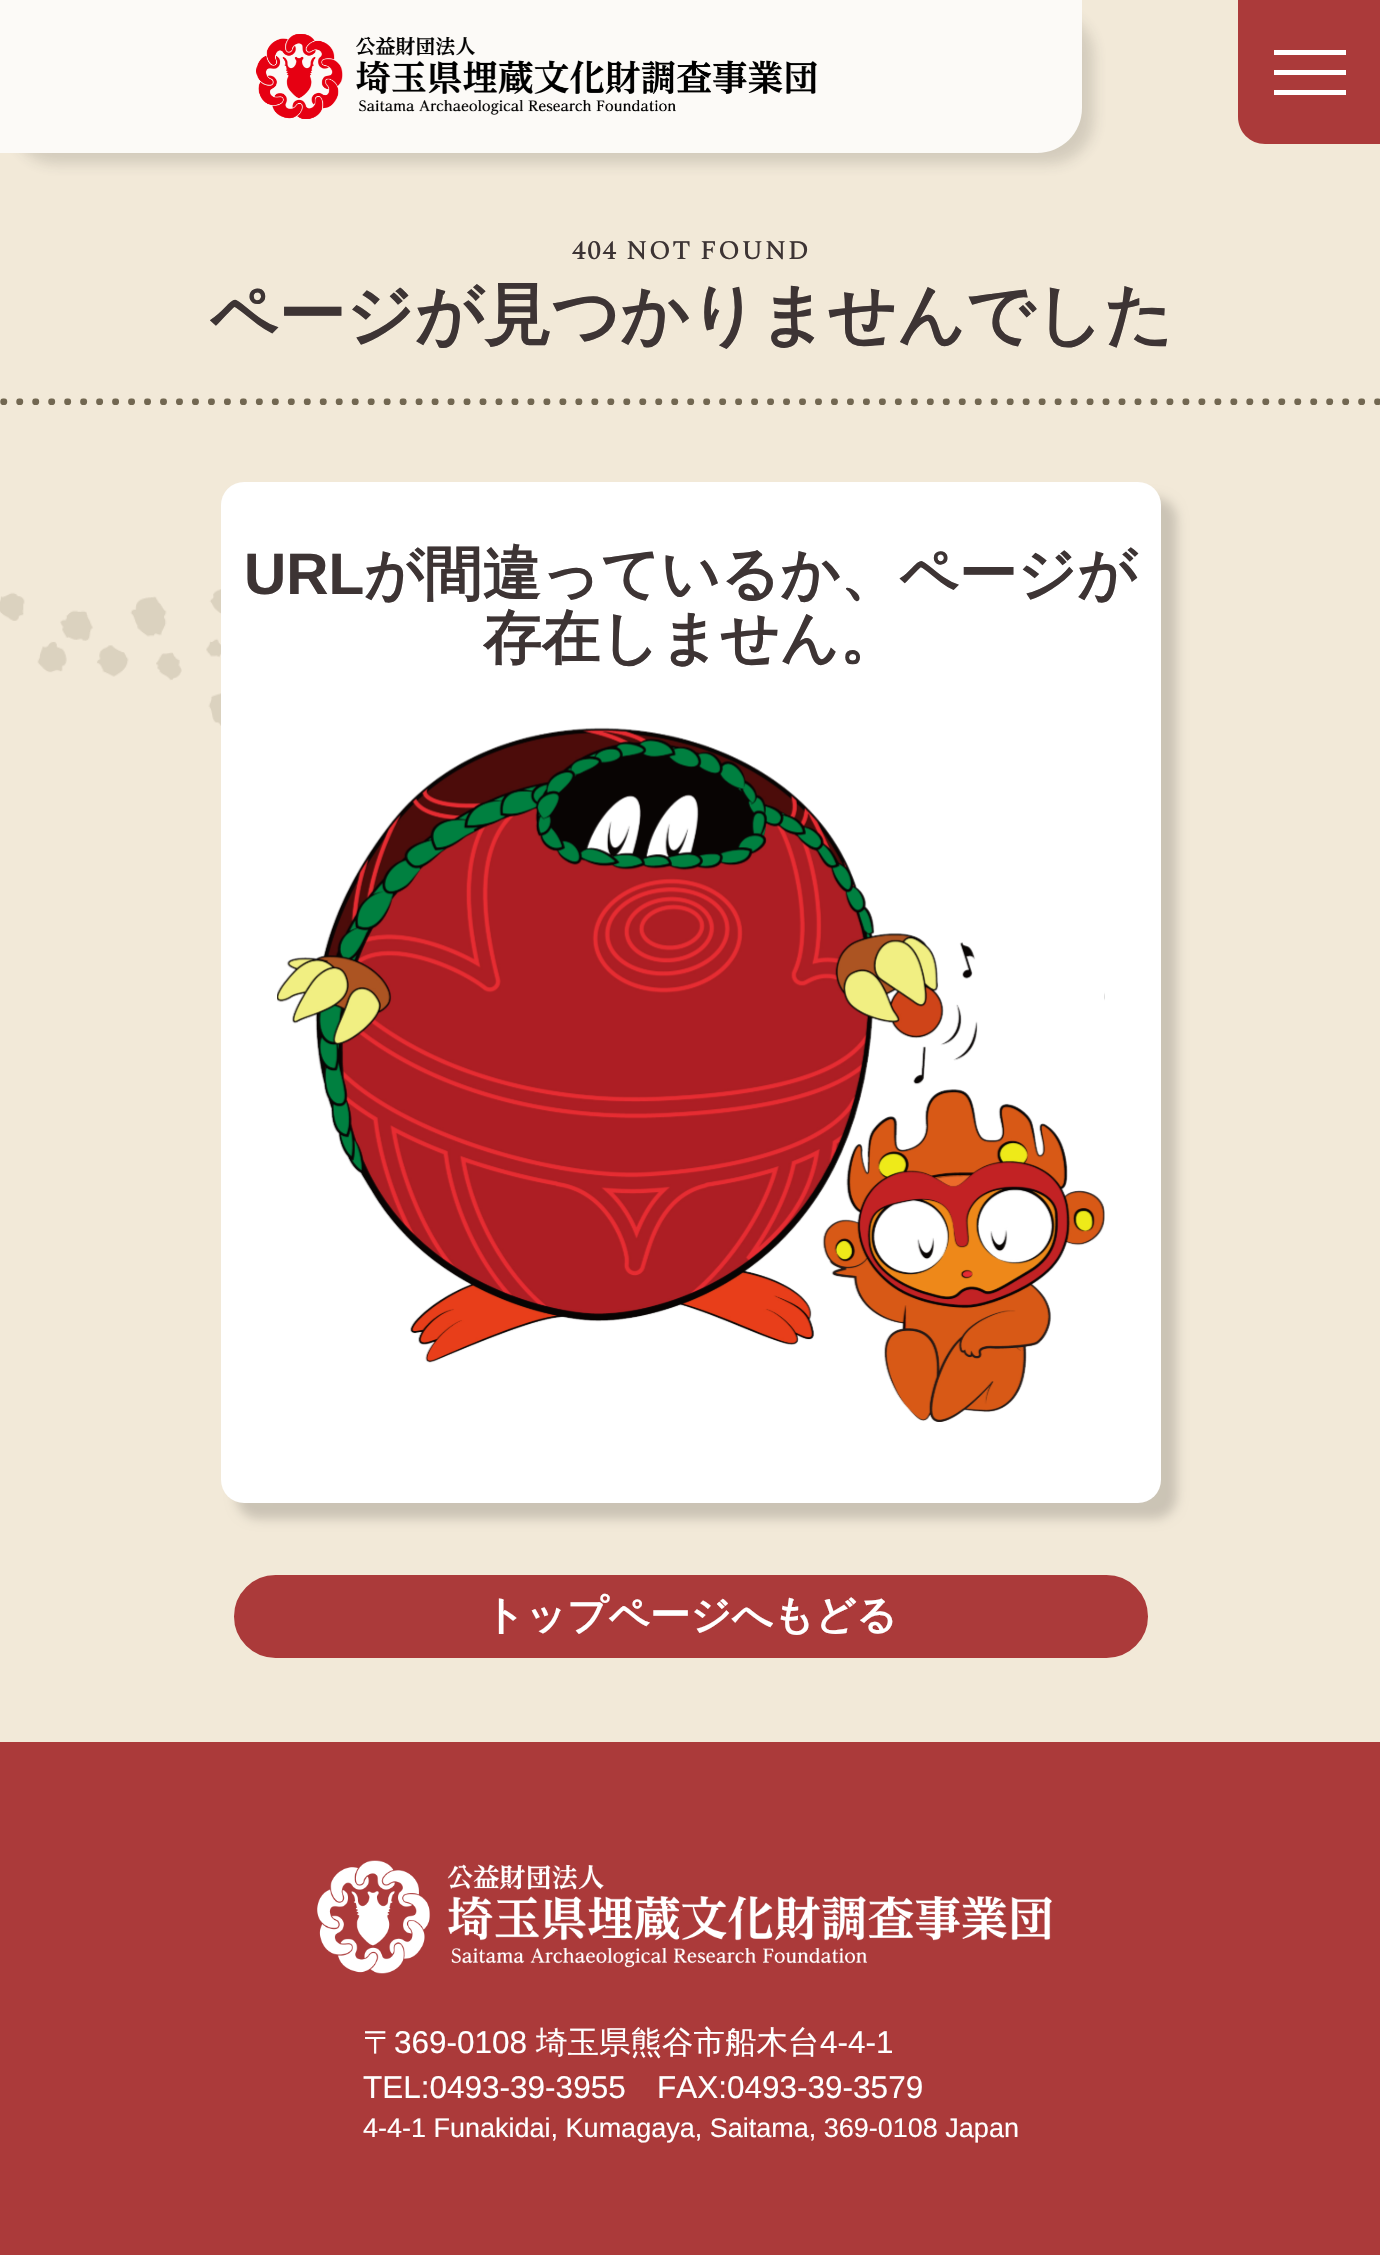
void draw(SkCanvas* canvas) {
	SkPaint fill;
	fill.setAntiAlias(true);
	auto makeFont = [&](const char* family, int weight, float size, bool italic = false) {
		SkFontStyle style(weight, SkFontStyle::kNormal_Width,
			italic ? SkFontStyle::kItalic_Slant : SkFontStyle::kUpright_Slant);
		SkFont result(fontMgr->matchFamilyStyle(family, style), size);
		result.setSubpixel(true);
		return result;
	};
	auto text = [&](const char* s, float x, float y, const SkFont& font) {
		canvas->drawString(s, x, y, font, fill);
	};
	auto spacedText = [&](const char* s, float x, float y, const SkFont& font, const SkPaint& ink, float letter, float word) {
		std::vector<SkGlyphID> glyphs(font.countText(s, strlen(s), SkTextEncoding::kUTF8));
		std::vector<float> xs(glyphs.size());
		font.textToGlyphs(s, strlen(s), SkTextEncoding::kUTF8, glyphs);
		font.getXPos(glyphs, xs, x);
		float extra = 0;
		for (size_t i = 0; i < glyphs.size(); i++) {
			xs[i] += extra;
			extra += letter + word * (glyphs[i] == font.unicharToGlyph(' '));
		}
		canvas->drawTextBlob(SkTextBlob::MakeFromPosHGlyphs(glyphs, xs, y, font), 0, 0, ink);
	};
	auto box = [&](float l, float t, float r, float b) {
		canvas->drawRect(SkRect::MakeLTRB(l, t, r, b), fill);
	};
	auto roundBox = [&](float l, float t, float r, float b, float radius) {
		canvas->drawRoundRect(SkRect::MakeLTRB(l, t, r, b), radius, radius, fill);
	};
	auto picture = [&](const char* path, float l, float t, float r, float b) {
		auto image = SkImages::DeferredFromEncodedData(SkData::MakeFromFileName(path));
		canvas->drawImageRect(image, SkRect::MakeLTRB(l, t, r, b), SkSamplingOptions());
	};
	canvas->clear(0xFFF2E9D8);
	fill.setColor(0x29302F2B);
	fill.setMaskFilter(SkMaskFilter::MakeBlur(kNormal_SkBlurStyle, 7));
	canvas->drawRoundRect(SkRect::MakeLTRB(11, 11, 1094, 164), 45, 45, fill);
	fill.setMaskFilter(nullptr);
	fill.setColor(0xFFFCFAF7);
	canvas->drawPath(SkPathBuilder().moveTo(0, 0).lineTo(1082, 0).lineTo(1082, 108).cubicTo(1082, 133, 1062, 153, 1037, 153).lineTo(0, 153).close().detach(), fill);
	picture("image0.png", 256, 34, 817, 119);
	fill.setColor(0xFFAB3A3A);
	canvas->drawPath(SkPathBuilder().moveTo(1238, 0).lineTo(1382, 0).lineTo(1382, 144).lineTo(1265, 144).cubicTo(1250, 144, 1238, 132, 1238, 117).close().detach(), fill);
	fill.setColor(0xFFFFFFFF);
	box(1274, 50, 1346, 55);
	box(1274, 70, 1346, 75);
	box(1274, 90, 1346, 95);
	picture("image1.png", 0, 589, 221, 726);
	picture("image2.png", 0, 398, 1380, 405);
	fill.setColor(0x29000000);
	fill.setMaskFilter(SkMaskFilter::MakeBlur(kNormal_SkBlurStyle, 5.5f));
	canvas->drawRoundRect(SkRect::MakeLTRB(236, 497, 1177, 1519), 23, 23, fill);
	fill.setMaskFilter(nullptr);
	fill.setColor(0xFFFFFFFF);
	roundBox(221, 482, 1161, 1503, 23);
	picture("image3.png", 277, 727, 1105, 1422);
	fill.setColor(0xFFAB3A3A);
	canvas->drawRoundRect(SkRect::MakeLTRB(237.5f, 1578.5f, 1144.5f, 1654.5f), 38, 38, fill);
	fill.setStyle(SkPaint::kStroke_Style);
	fill.setStrokeWidth(7);
	canvas->drawRoundRect(SkRect::MakeLTRB(237.5f, 1578.5f, 1144.5f, 1654.5f), 38, 38, fill);
	fill.setStyle(SkPaint::kFill_Style);
	box(0, 1742, 1380, 2255);
	picture("image4.png", 317, 1860, 1052, 1974);
	auto font1 = makeFont("Spectral SC", 500, 27);
	fill.setColor(0xFF3D3434);
	spacedText("404 NOT FOUND", 572, 259, font1, fill, 1.4f, 0);
	auto font2 = makeFont("WenQuanYi Zen Hei", 700, 67.5f);
	text("ページが見つかりませんでした", 209, 338, font2);
	auto font3 = makeFont("Liberation Sans", 700, 58.5f);
	text("URL", 244, 594, font3);
	auto font4 = makeFont("WenQuanYi Zen Hei", 700, 58.5f);
	text("が間違っているか、ページが", 364, 594, font4);
	text("存在しません。", 483, 658, font4);
	auto font5 = makeFont("WenQuanYi Zen Hei", 700, 40.5f);
	fill.setColor(0xFFFFFFFF);
	text("トップページへもどる", 484, 1629, font5);
	auto font6 = makeFont("WenQuanYi Zen Hei", 500, 31.5f);
	text("〒", 363, 2053, font6);
	auto font7 = makeFont("Liberation Sans", 400, 31.5f);
	text("369-0108", 394, 2053, font7);
	text("埼玉県熊谷市船木台", 536, 2053, font6);
	text("4-4-1", 820, 2053, font7);
	text("TEL:0493-39-3955", 363, 2098, font7);
	text("FAX:0493-39-3579", 657, 2098, font7);
	auto font8 = makeFont("Liberation Sans", 400, 27);
	text("4-4-1 Funakidai, Kumagaya, Saitama, 369-0108 Japan", 363, 2137, font8);
}
